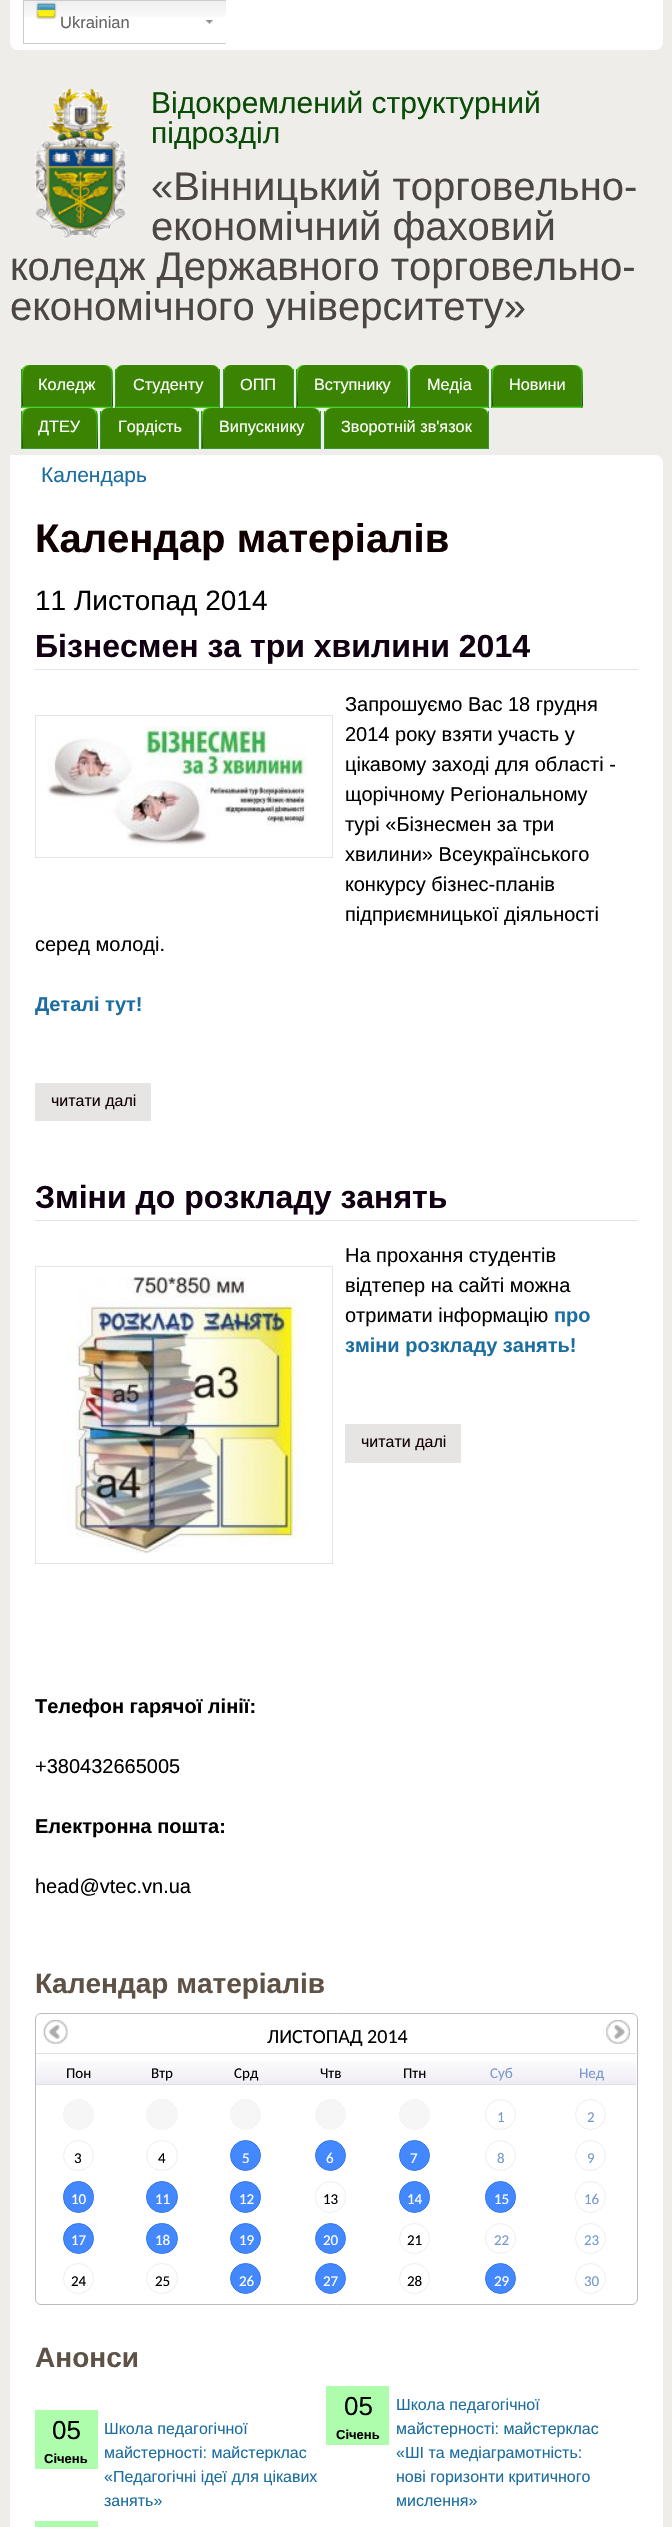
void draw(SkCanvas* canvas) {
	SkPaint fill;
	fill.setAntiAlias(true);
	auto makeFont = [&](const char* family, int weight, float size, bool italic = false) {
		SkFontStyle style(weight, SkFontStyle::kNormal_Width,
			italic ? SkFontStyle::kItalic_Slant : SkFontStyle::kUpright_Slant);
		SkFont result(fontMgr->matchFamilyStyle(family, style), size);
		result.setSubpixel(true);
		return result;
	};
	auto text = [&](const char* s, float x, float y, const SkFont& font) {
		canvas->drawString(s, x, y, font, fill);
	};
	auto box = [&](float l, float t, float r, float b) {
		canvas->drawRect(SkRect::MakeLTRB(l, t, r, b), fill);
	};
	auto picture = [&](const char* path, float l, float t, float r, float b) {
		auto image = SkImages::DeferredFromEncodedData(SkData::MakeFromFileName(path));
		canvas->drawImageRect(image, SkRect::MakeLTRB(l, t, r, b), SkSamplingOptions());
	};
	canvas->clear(0xFFEFEDEA);
	fill.setColor(0xFFFFFFFF);
	canvas->drawPath(SkPathBuilder().moveTo(10, 0).lineTo(663, 0).lineTo(663, 42).cubicTo(663, 46.5f, 659.5f, 50, 655, 50).lineTo(18, 50).cubicTo(13.5f, 50, 10, 46.5f, 10, 42).close().detach(), fill);
	picture("image0.png", 22, 0, 226, 17);
	picture("image1.png", 206, 20, 213, 24);
	canvas->save();
	canvas->clipRect(SkRect::MakeLTRB(23, 0, 226, 44));
	fill.setStyle(SkPaint::kStroke_Style);
	fill.setStrokeWidth(1);
	fill.setColor(0xFFCCCCCC);
	canvas->drawRect(SkRect::MakeLTRB(23.5f, 0.5f, 238.5f, 43.5f), fill);
	canvas->restore();
	picture("image2.png", 36, 2, 57, 20);
	picture("image3.png", 35, 87, 127, 238);
	fill.setStyle(SkPaint::kFill_Style);
	{
		const SkColor colors[] = {0xFF50DB0D, 0xFF274D00};
		const float stops[] = {0, 1};
		const SkPoint ends[] = {{23, 365}, {23, 406}};
		fill.setShader(SkGradientShader::MakeLinear(ends, colors, stops, 2, SkTileMode::kClamp));
		fill.setAlpha(255);
	}
	canvas->drawPath(SkPathBuilder().moveTo(29, 365).lineTo(105, 365).cubicTo(109.5f, 365, 113, 368.5f, 113, 373).lineTo(113, 406).lineTo(21, 406).lineTo(21, 373).cubicTo(21, 368.5f, 24.5f, 365, 29, 365).close().detach(), fill);
	{
		const SkColor colors[] = {0xFF50DB0D, 0xFF274D00};
		const float stops[] = {0, 1};
		const SkPoint ends[] = {{23, 406}, {23, 448}};
		fill.setShader(SkGradientShader::MakeLinear(ends, colors, stops, 2, SkTileMode::kClamp));
		fill.setAlpha(255);
	}
	box(21, 407, 113, 408);
	fill.setShader(nullptr);
	fill.setColor(0xFF339933);
	box(111, 369, 112, 408);
	box(21, 406, 113, 407);
	box(21, 369, 22, 408);
	fill.setColor(0xFF3B8403);
	canvas->drawPath(SkPathBuilder().moveTo(31, 365).lineTo(103, 365).cubicTo(107.5f, 365, 111, 368.5f, 111, 373).lineTo(111, 406).lineTo(23, 406).lineTo(23, 373).cubicTo(23, 368.5f, 26.5f, 365, 31, 365).close().detach(), fill);
	{
		const SkColor colors[] = {0xFF50DB0D, 0xFF274D00};
		const float stops[] = {0, 1};
		const SkPoint ends[] = {{116, 365}, {116, 406}};
		fill.setShader(SkGradientShader::MakeLinear(ends, colors, stops, 2, SkTileMode::kClamp));
		fill.setAlpha(255);
	}
	canvas->drawPath(SkPathBuilder().moveTo(123, 365).lineTo(212, 365).cubicTo(216.5f, 365, 220, 368.5f, 220, 373).lineTo(220, 406).lineTo(115, 406).lineTo(115, 373).cubicTo(115, 368.5f, 118.5f, 365, 123, 365).close().detach(), fill);
	{
		const SkColor colors[] = {0xFF50DB0D, 0xFF274D00};
		const float stops[] = {0, 1};
		const SkPoint ends[] = {{116, 406}, {116, 448}};
		fill.setShader(SkGradientShader::MakeLinear(ends, colors, stops, 2, SkTileMode::kClamp));
		fill.setAlpha(255);
	}
	box(115, 407, 220, 408);
	fill.setShader(nullptr);
	fill.setColor(0xFF339933);
	box(219, 369, 220, 408);
	box(115, 406, 220, 407);
	box(115, 369, 116, 408);
	fill.setColor(0xFF3B8403);
	canvas->drawPath(SkPathBuilder().moveTo(124, 365).lineTo(211, 365).cubicTo(215.5f, 365, 219, 368.5f, 219, 373).lineTo(219, 406).lineTo(116, 406).lineTo(116, 373).cubicTo(116, 368.5f, 119.5f, 365, 124, 365).close().detach(), fill);
	{
		const SkColor colors[] = {0xFF50DB0D, 0xFF274D00};
		const float stops[] = {0, 1};
		const SkPoint ends[] = {{224, 365}, {224, 406}};
		fill.setShader(SkGradientShader::MakeLinear(ends, colors, stops, 2, SkTileMode::kClamp));
		fill.setAlpha(255);
	}
	canvas->drawPath(SkPathBuilder().moveTo(231, 365).lineTo(286, 365).cubicTo(290.5f, 365, 294, 368.5f, 294, 373).lineTo(294, 406).lineTo(223, 406).lineTo(223, 373).cubicTo(223, 368.5f, 226.5f, 365, 231, 365).close().detach(), fill);
	{
		const SkColor colors[] = {0xFF50DB0D, 0xFF274D00};
		const float stops[] = {0, 1};
		const SkPoint ends[] = {{224, 406}, {224, 448}};
		fill.setShader(SkGradientShader::MakeLinear(ends, colors, stops, 2, SkTileMode::kClamp));
		fill.setAlpha(255);
	}
	box(223, 407, 294, 408);
	fill.setShader(nullptr);
	fill.setColor(0xFF339933);
	box(293, 369, 294, 408);
	box(223, 406, 294, 407);
	box(223, 369, 224, 408);
	fill.setColor(0xFF3B8403);
	canvas->drawPath(SkPathBuilder().moveTo(232, 365).lineTo(285, 365).cubicTo(289.5f, 365, 293, 368.5f, 293, 373).lineTo(293, 406).lineTo(224, 406).lineTo(224, 373).cubicTo(224, 368.5f, 227.5f, 365, 232, 365).close().detach(), fill);
	{
		const SkColor colors[] = {0xFF50DB0D, 0xFF274D00};
		const float stops[] = {0, 1};
		const SkPoint ends[] = {{298, 365}, {298, 406}};
		fill.setShader(SkGradientShader::MakeLinear(ends, colors, stops, 2, SkTileMode::kClamp));
		fill.setAlpha(255);
	}
	canvas->drawPath(SkPathBuilder().moveTo(304, 365).lineTo(400, 365).cubicTo(404.5f, 365, 408, 368.5f, 408, 373).lineTo(408, 406).lineTo(296, 406).lineTo(296, 373).cubicTo(296, 368.5f, 299.5f, 365, 304, 365).close().detach(), fill);
	{
		const SkColor colors[] = {0xFF50DB0D, 0xFF274D00};
		const float stops[] = {0, 1};
		const SkPoint ends[] = {{298, 406}, {298, 448}};
		fill.setShader(SkGradientShader::MakeLinear(ends, colors, stops, 2, SkTileMode::kClamp));
		fill.setAlpha(255);
	}
	box(296, 407, 408, 408);
	fill.setShader(nullptr);
	fill.setColor(0xFF339933);
	box(406, 369, 407, 408);
	box(296, 406, 408, 407);
	box(296, 369, 297, 408);
	fill.setColor(0xFF3B8403);
	canvas->drawPath(SkPathBuilder().moveTo(306, 365).lineTo(398, 365).cubicTo(402.5f, 365, 406, 368.5f, 406, 373).lineTo(406, 406).lineTo(298, 406).lineTo(298, 373).cubicTo(298, 368.5f, 301.5f, 365, 306, 365).close().detach(), fill);
	{
		const SkColor colors[] = {0xFF50DB0D, 0xFF274D00};
		const float stops[] = {0, 1};
		const SkPoint ends[] = {{411, 365}, {411, 406}};
		fill.setShader(SkGradientShader::MakeLinear(ends, colors, stops, 2, SkTileMode::kClamp));
		fill.setAlpha(255);
	}
	canvas->drawPath(SkPathBuilder().moveTo(418, 365).lineTo(481, 365).cubicTo(485.5f, 365, 489, 368.5f, 489, 373).lineTo(489, 406).lineTo(410, 406).lineTo(410, 373).cubicTo(410, 368.5f, 413.5f, 365, 418, 365).close().detach(), fill);
	{
		const SkColor colors[] = {0xFF50DB0D, 0xFF274D00};
		const float stops[] = {0, 1};
		const SkPoint ends[] = {{411, 406}, {411, 448}};
		fill.setShader(SkGradientShader::MakeLinear(ends, colors, stops, 2, SkTileMode::kClamp));
		fill.setAlpha(255);
	}
	box(410, 407, 489, 408);
	fill.setShader(nullptr);
	fill.setColor(0xFF339933);
	box(488, 369, 489, 408);
	box(410, 406, 489, 407);
	box(410, 369, 411, 408);
	fill.setColor(0xFF3B8403);
	canvas->drawPath(SkPathBuilder().moveTo(419, 365).lineTo(480, 365).cubicTo(484.5f, 365, 488, 368.5f, 488, 373).lineTo(488, 406).lineTo(411, 406).lineTo(411, 373).cubicTo(411, 368.5f, 414.5f, 365, 419, 365).close().detach(), fill);
	{
		const SkColor colors[] = {0xFF50DB0D, 0xFF274D00};
		const float stops[] = {0, 1};
		const SkPoint ends[] = {{493, 365}, {493, 406}};
		fill.setShader(SkGradientShader::MakeLinear(ends, colors, stops, 2, SkTileMode::kClamp));
		fill.setAlpha(255);
	}
	canvas->drawPath(SkPathBuilder().moveTo(499, 365).lineTo(575, 365).cubicTo(579.5f, 365, 583, 368.5f, 583, 373).lineTo(583, 406).lineTo(491, 406).lineTo(491, 373).cubicTo(491, 368.5f, 494.5f, 365, 499, 365).close().detach(), fill);
	{
		const SkColor colors[] = {0xFF50DB0D, 0xFF274D00};
		const float stops[] = {0, 1};
		const SkPoint ends[] = {{493, 406}, {493, 448}};
		fill.setShader(SkGradientShader::MakeLinear(ends, colors, stops, 2, SkTileMode::kClamp));
		fill.setAlpha(255);
	}
	box(491, 407, 583, 408);
	fill.setShader(nullptr);
	fill.setColor(0xFF339933);
	box(581, 369, 582, 408);
	box(491, 406, 583, 407);
	box(491, 369, 492, 408);
	fill.setColor(0xFF3B8403);
	canvas->drawPath(SkPathBuilder().moveTo(501, 365).lineTo(573, 365).cubicTo(577.5f, 365, 581, 368.5f, 581, 373).lineTo(581, 406).lineTo(493, 406).lineTo(493, 373).cubicTo(493, 368.5f, 496.5f, 365, 501, 365).close().detach(), fill);
	{
		const SkColor colors[] = {0xFF50DB0D, 0xFF274D00};
		const float stops[] = {0, 1};
		const SkPoint ends[] = {{23, 408}, {23, 448}};
		fill.setShader(SkGradientShader::MakeLinear(ends, colors, stops, 2, SkTileMode::kClamp));
		fill.setAlpha(255);
	}
	canvas->drawPath(SkPathBuilder().moveTo(29, 408).lineTo(90, 408).cubicTo(94.5f, 408, 98, 411.5f, 98, 416).lineTo(98, 448).lineTo(21, 448).lineTo(21, 416).cubicTo(21, 411.5f, 24.5f, 408, 29, 408).close().detach(), fill);
	fill.setShader(nullptr);
	fill.setColor(0xFF339933);
	box(96, 411, 97, 449);
	box(21, 448, 98, 449);
	box(21, 411, 22, 449);
	fill.setColor(0xFF3B8403);
	canvas->drawPath(SkPathBuilder().moveTo(31, 408).lineTo(88, 408).cubicTo(92.5f, 408, 96, 411.5f, 96, 416).lineTo(96, 448).lineTo(23, 448).lineTo(23, 416).cubicTo(23, 411.5f, 26.5f, 408, 31, 408).close().detach(), fill);
	{
		const SkColor colors[] = {0xFF50DB0D, 0xFF274D00};
		const float stops[] = {0, 1};
		const SkPoint ends[] = {{101, 408}, {101, 448}};
		fill.setShader(SkGradientShader::MakeLinear(ends, colors, stops, 2, SkTileMode::kClamp));
		fill.setAlpha(255);
	}
	canvas->drawPath(SkPathBuilder().moveTo(108, 408).lineTo(191, 408).cubicTo(195.5f, 408, 199, 411.5f, 199, 416).lineTo(199, 448).lineTo(100, 448).lineTo(100, 416).cubicTo(100, 411.5f, 103.5f, 408, 108, 408).close().detach(), fill);
	fill.setShader(nullptr);
	fill.setColor(0xFF339933);
	box(198, 411, 199, 449);
	box(100, 448, 199, 449);
	box(100, 411, 101, 449);
	fill.setColor(0xFF3B8403);
	canvas->drawPath(SkPathBuilder().moveTo(109, 408).lineTo(190, 408).cubicTo(194.5f, 408, 198, 411.5f, 198, 416).lineTo(198, 448).lineTo(101, 448).lineTo(101, 416).cubicTo(101, 411.5f, 104.5f, 408, 109, 408).close().detach(), fill);
	{
		const SkColor colors[] = {0xFF50DB0D, 0xFF274D00};
		const float stops[] = {0, 1};
		const SkPoint ends[] = {{203, 408}, {203, 448}};
		fill.setShader(SkGradientShader::MakeLinear(ends, colors, stops, 2, SkTileMode::kClamp));
		fill.setAlpha(255);
	}
	canvas->drawPath(SkPathBuilder().moveTo(209, 408).lineTo(313, 408).cubicTo(317.5f, 408, 321, 411.5f, 321, 416).lineTo(321, 448).lineTo(201, 448).lineTo(201, 416).cubicTo(201, 411.5f, 204.5f, 408, 209, 408).close().detach(), fill);
	fill.setShader(nullptr);
	fill.setColor(0xFF339933);
	box(320, 411, 321, 449);
	box(201, 448, 321, 449);
	box(201, 411, 202, 449);
	fill.setColor(0xFF3B8403);
	canvas->drawPath(SkPathBuilder().moveTo(211, 408).lineTo(312, 408).cubicTo(316.5f, 408, 320, 411.5f, 320, 416).lineTo(320, 448).lineTo(203, 448).lineTo(203, 416).cubicTo(203, 411.5f, 206.5f, 408, 211, 408).close().detach(), fill);
	{
		const SkColor colors[] = {0xFF50DB0D, 0xFF274D00};
		const float stops[] = {0, 1};
		const SkPoint ends[] = {{325, 408}, {325, 448}};
		fill.setShader(SkGradientShader::MakeLinear(ends, colors, stops, 2, SkTileMode::kClamp));
		fill.setAlpha(255);
	}
	canvas->drawPath(SkPathBuilder().moveTo(332, 408).lineTo(481, 408).cubicTo(485.5f, 408, 489, 411.5f, 489, 416).lineTo(489, 448).lineTo(324, 448).lineTo(324, 416).cubicTo(324, 411.5f, 327.5f, 408, 332, 408).close().detach(), fill);
	fill.setShader(nullptr);
	fill.setColor(0xFF339933);
	box(488, 411, 489, 449);
	box(324, 448, 489, 449);
	box(324, 411, 325, 449);
	fill.setColor(0xFF3B8403);
	canvas->drawPath(SkPathBuilder().moveTo(333, 408).lineTo(480, 408).cubicTo(484.5f, 408, 488, 411.5f, 488, 416).lineTo(488, 448).lineTo(325, 448).lineTo(325, 416).cubicTo(325, 411.5f, 328.5f, 408, 333, 408).close().detach(), fill);
	fill.setColor(0xFFFFFFFF);
	canvas->drawPath(SkPathBuilder().moveTo(10, 455).lineTo(655, 455).cubicTo(659.5f, 455, 663, 458.5f, 663, 463).lineTo(663, 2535).lineTo(10, 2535).close().detach(), fill);
	fill.setColor(0xFFE6E4DE);
	box(35, 669, 638, 670);
	fill.setStyle(SkPaint::kStroke_Style);
	canvas->drawRect(SkRect::MakeLTRB(35.5f, 715.5f, 332.5f, 857.5f), fill);
	picture("image4.png", 47, 726, 307, 846);
	fill.setStyle(SkPaint::kFill_Style);
	fill.setColor(0xFFE7E5E3);
	box(35, 1083, 151, 1121);
	fill.setColor(0xFFE6E4DE);
	box(35, 1220, 638, 1221);
	fill.setStyle(SkPaint::kStroke_Style);
	canvas->drawRect(SkRect::MakeLTRB(35.5f, 1266.5f, 332.5f, 1563.5f), fill);
	picture("image5.png", 66, 1277, 307, 1553);
	fill.setStyle(SkPaint::kFill_Style);
	fill.setColor(0xFFE7E5E3);
	box(345, 1424, 461, 1463);
	fill.setStyle(SkPaint::kStroke_Style);
	fill.setColor(0xFFBBBBBB);
	canvas->drawRoundRect(SkRect::MakeLTRB(35.5f, 2013.5f, 637.5f, 2304.5f), 5.5f, 5.5f, fill);
	fill.setStyle(SkPaint::kFill_Style);
	fill.setColor(0xFFE0E0E0);
	box(36, 2053, 639, 2054);
	picture("image6.png", 43, 2020, 68, 2044);
	picture("image7.png", 606, 2020, 631, 2044);
	picture("image8.png", 36, 2061, 637, 2085);
	box(36, 2084, 636, 2085);
	fill.setColor(0xFFF6F6F6);
	canvas->drawCircle(78.5f, 2114.5f, 15, fill);
	fill.setStyle(SkPaint::kStroke_Style);
	fill.setColor(0xFFF4F4F4);
	canvas->drawCircle(78.5f, 2114.5f, 15, fill);
	fill.setStyle(SkPaint::kFill_Style);
	fill.setColor(0xFFF6F6F6);
	canvas->drawRoundRect(SkRect::MakeLTRB(146.5f, 2099.5f, 177.5f, 2129.5f), 15, 15, fill);
	fill.setStyle(SkPaint::kStroke_Style);
	fill.setColor(0xFFF4F4F4);
	canvas->drawRoundRect(SkRect::MakeLTRB(146.5f, 2099.5f, 177.5f, 2129.5f), 15, 15, fill);
	fill.setStyle(SkPaint::kFill_Style);
	fill.setColor(0xFFF6F6F6);
	canvas->drawCircle(245.5f, 2114.5f, 15, fill);
	fill.setStyle(SkPaint::kStroke_Style);
	fill.setColor(0xFFF4F4F4);
	canvas->drawCircle(245.5f, 2114.5f, 15, fill);
	fill.setStyle(SkPaint::kFill_Style);
	fill.setColor(0xFFF6F6F6);
	canvas->drawCircle(330.5f, 2114.5f, 15, fill);
	fill.setStyle(SkPaint::kStroke_Style);
	fill.setColor(0xFFF4F4F4);
	canvas->drawCircle(330.5f, 2114.5f, 15, fill);
	fill.setStyle(SkPaint::kFill_Style);
	fill.setColor(0xFFF6F6F6);
	canvas->drawCircle(414.5f, 2114.5f, 15, fill);
	fill.setStyle(SkPaint::kStroke_Style);
	fill.setColor(0xFFF4F4F4);
	canvas->drawCircle(414.5f, 2114.5f, 15, fill);
	fill.setColor(0xFFEEEEEE);
	canvas->drawCircle(500.5f, 2114.5f, 15, fill);
	canvas->drawCircle(590.5f, 2114.5f, 15, fill);
	canvas->drawCircle(78.5f, 2155.5f, 15, fill);
	canvas->drawRoundRect(SkRect::MakeLTRB(146.5f, 2140.5f, 177.5f, 2170.5f), 15, 15, fill);
	fill.setStyle(SkPaint::kFill_Style);
	fill.setColor(0xFF4488FF);
	canvas->drawCircle(245.5f, 2155.5f, 15, fill);
	fill.setStyle(SkPaint::kStroke_Style);
	fill.setColor(0xFF3377EE);
	canvas->drawCircle(245.5f, 2155.5f, 15, fill);
	fill.setStyle(SkPaint::kFill_Style);
	fill.setColor(0xFF4488FF);
	canvas->drawCircle(330.5f, 2155.5f, 15, fill);
	fill.setStyle(SkPaint::kStroke_Style);
	fill.setColor(0xFF3377EE);
	canvas->drawCircle(330.5f, 2155.5f, 15, fill);
	fill.setStyle(SkPaint::kFill_Style);
	fill.setColor(0xFF4488FF);
	canvas->drawCircle(414.5f, 2155.5f, 15, fill);
	fill.setStyle(SkPaint::kStroke_Style);
	fill.setColor(0xFF3377EE);
	canvas->drawCircle(414.5f, 2155.5f, 15, fill);
	fill.setColor(0xFFEEEEEE);
	canvas->drawCircle(500.5f, 2155.5f, 15, fill);
	canvas->drawCircle(590.5f, 2155.5f, 15, fill);
	fill.setStyle(SkPaint::kFill_Style);
	fill.setColor(0xFF4488FF);
	canvas->drawRoundRect(SkRect::MakeLTRB(63.5f, 2181.5f, 93.5f, 2212.5f), 15, 15, fill);
	fill.setStyle(SkPaint::kStroke_Style);
	fill.setColor(0xFF3377EE);
	canvas->drawRoundRect(SkRect::MakeLTRB(63.5f, 2181.5f, 93.5f, 2212.5f), 15, 15, fill);
	fill.setStyle(SkPaint::kFill_Style);
	fill.setColor(0xFF4488FF);
	canvas->drawCircle(162, 2197, 15.5f, fill);
	fill.setStyle(SkPaint::kStroke_Style);
	fill.setColor(0xFF3377EE);
	canvas->drawCircle(162, 2197, 15.5f, fill);
	fill.setStyle(SkPaint::kFill_Style);
	fill.setColor(0xFF4488FF);
	canvas->drawRoundRect(SkRect::MakeLTRB(230.5f, 2181.5f, 260.5f, 2212.5f), 15, 15, fill);
	fill.setStyle(SkPaint::kStroke_Style);
	fill.setColor(0xFF3377EE);
	canvas->drawRoundRect(SkRect::MakeLTRB(230.5f, 2181.5f, 260.5f, 2212.5f), 15, 15, fill);
	fill.setColor(0xFFEEEEEE);
	canvas->drawRoundRect(SkRect::MakeLTRB(315.5f, 2181.5f, 345.5f, 2212.5f), 15, 15, fill);
	fill.setStyle(SkPaint::kFill_Style);
	fill.setColor(0xFF4488FF);
	canvas->drawRoundRect(SkRect::MakeLTRB(399.5f, 2181.5f, 429.5f, 2212.5f), 15, 15, fill);
	fill.setStyle(SkPaint::kStroke_Style);
	fill.setColor(0xFF3377EE);
	canvas->drawRoundRect(SkRect::MakeLTRB(399.5f, 2181.5f, 429.5f, 2212.5f), 15, 15, fill);
	fill.setStyle(SkPaint::kFill_Style);
	fill.setColor(0xFF4488FF);
	canvas->drawRoundRect(SkRect::MakeLTRB(485.5f, 2181.5f, 515.5f, 2212.5f), 15, 15, fill);
	fill.setStyle(SkPaint::kStroke_Style);
	fill.setColor(0xFF3377EE);
	canvas->drawRoundRect(SkRect::MakeLTRB(485.5f, 2181.5f, 515.5f, 2212.5f), 15, 15, fill);
	fill.setColor(0xFFEEEEEE);
	canvas->drawRoundRect(SkRect::MakeLTRB(575.5f, 2181.5f, 605.5f, 2212.5f), 15, 15, fill);
	fill.setStyle(SkPaint::kFill_Style);
	fill.setColor(0xFF4488FF);
	canvas->drawCircle(78.5f, 2238.5f, 15, fill);
	fill.setStyle(SkPaint::kStroke_Style);
	fill.setColor(0xFF3377EE);
	canvas->drawCircle(78.5f, 2238.5f, 15, fill);
	fill.setStyle(SkPaint::kFill_Style);
	fill.setColor(0xFF4488FF);
	canvas->drawRoundRect(SkRect::MakeLTRB(146.5f, 2223.5f, 177.5f, 2253.5f), 15, 15, fill);
	fill.setStyle(SkPaint::kStroke_Style);
	fill.setColor(0xFF3377EE);
	canvas->drawRoundRect(SkRect::MakeLTRB(146.5f, 2223.5f, 177.5f, 2253.5f), 15, 15, fill);
	fill.setStyle(SkPaint::kFill_Style);
	fill.setColor(0xFF4488FF);
	canvas->drawCircle(245.5f, 2238.5f, 15, fill);
	fill.setStyle(SkPaint::kStroke_Style);
	fill.setColor(0xFF3377EE);
	canvas->drawCircle(245.5f, 2238.5f, 15, fill);
	fill.setStyle(SkPaint::kFill_Style);
	fill.setColor(0xFF4488FF);
	canvas->drawCircle(330.5f, 2238.5f, 15, fill);
	fill.setStyle(SkPaint::kStroke_Style);
	fill.setColor(0xFF3377EE);
	canvas->drawCircle(330.5f, 2238.5f, 15, fill);
	fill.setColor(0xFFEEEEEE);
	canvas->drawCircle(414.5f, 2238.5f, 15, fill);
	canvas->drawCircle(500.5f, 2238.5f, 15, fill);
	canvas->drawCircle(590.5f, 2238.5f, 15, fill);
	canvas->drawCircle(78.5f, 2278.5f, 15, fill);
	canvas->drawRoundRect(SkRect::MakeLTRB(146.5f, 2263.5f, 177.5f, 2293.5f), 15, 15, fill);
	fill.setStyle(SkPaint::kFill_Style);
	fill.setColor(0xFF4488FF);
	canvas->drawCircle(245.5f, 2278.5f, 15, fill);
	fill.setStyle(SkPaint::kStroke_Style);
	fill.setColor(0xFF3377EE);
	canvas->drawCircle(245.5f, 2278.5f, 15, fill);
	fill.setStyle(SkPaint::kFill_Style);
	fill.setColor(0xFF4488FF);
	canvas->drawCircle(330.5f, 2278.5f, 15, fill);
	fill.setStyle(SkPaint::kStroke_Style);
	fill.setColor(0xFF3377EE);
	canvas->drawCircle(330.5f, 2278.5f, 15, fill);
	fill.setColor(0xFFEEEEEE);
	canvas->drawCircle(414.5f, 2278.5f, 15, fill);
	fill.setStyle(SkPaint::kFill_Style);
	fill.setColor(0xFF4488FF);
	canvas->drawCircle(500.5f, 2278.5f, 15, fill);
	fill.setStyle(SkPaint::kStroke_Style);
	fill.setColor(0xFF3377EE);
	canvas->drawCircle(500.5f, 2278.5f, 15, fill);
	fill.setColor(0xFFEEEEEE);
	canvas->drawCircle(590.5f, 2278.5f, 15, fill);
	fill.setStyle(SkPaint::kFill_Style);
	fill.setColor(0xFFAEFDAC);
	box(35, 2410, 98, 2469);
	box(326, 2386, 389, 2445);
	box(35, 2521, 98, 2527);
	auto font1 = makeFont("Liberation Sans", 400, 16.5f);
	fill.setColor(0xFF666666);
	text("Ukrainian", 60, 28, font1);
	auto font2 = makeFont("Liberation Sans", 400, 30);
	fill.setColor(0xFF094C05);
	text("Відокремлений структурний", 151, 113, font2);
	text("підрозділ", 151, 143, font2);
	auto font3 = makeFont("Liberation Sans", 400, 40);
	fill.setColor(0xFF4C4742);
	text("«Вінницький торговельно-", 151, 200, font3);
	text("економічний фаховий", 151, 240, font3);
	text("коледж Державного торговельно-", 10, 280, font3);
	text("економічного університету»", 10, 320, font3);
	auto font4 = makeFont("Liberation Sans", 400, 16.25f);
	fill.setColor(0xFFFFFFFF);
	text("Коледж", 38, 390, font4);
	text("Студенту", 133, 390, font4);
	text("ОПП", 240, 390, font4);
	text("Вступнику", 314, 390, font4);
	text("Медіа", 427, 390, font4);
	text("Новини", 509, 390, font4);
	text("ДТЕУ", 38, 432, font4);
	text("Гордість", 118, 432, font4);
	text("Випускнику", 219, 432, font4);
	text("Зворотній зв'язок", 341, 432, font4);
	auto font5 = makeFont("Liberation Sans", 400, 21);
	fill.setColor(0xFF1C6EA0);
	text("Календарь", 41, 482, font5);
	auto font6 = makeFont("Liberation Sans", 700, 40);
	fill.setColor(0xFF100001);
	text("Календар матеріалів", 35, 552, font6);
	auto font7 = makeFont("Liberation Sans", 400, 28);
	fill.setColor(0xFF000000);
	text("11 Листопад 2014", 35, 610, font7);
	auto font8 = makeFont("Liberation Sans", 700, 32);
	fill.setColor(0xFF100011);
	text("Бізнесмен за три хвилини 2014", 35, 657, font8);
	auto font9 = makeFont("Liberation Sans", 400, 20);
	fill.setColor(0xFF000000);
	text("Запрошуємо Вас 18 грудня", 345, 711, font9);
	text("2014 року взяти участь у", 345, 741, font9);
	text("цікавому заході для області -", 345, 771, font9);
	text("щорічному Регіональному", 345, 801, font9);
	text("турі «Бізнесмен за три", 345, 831, font9);
	text("хвилини» Всеукраїнського", 345, 861, font9);
	text("конкурсу бізнес-планів", 345, 891, font9);
	text("підприємницької діяльності", 345, 921, font9);
	text("серед молоді.", 35, 951, font9);
	auto font10 = makeFont("Liberation Sans", 700, 20);
	fill.setColor(0xFF1C6EA0);
	text("Деталі тут!", 35, 1011, font10);
	auto font11 = makeFont("Liberation Sans", 400, 16);
	fill.setColor(0xFF100001);
	text("читати далі", 51, 1106, font11);
	fill.setColor(0xFF100011);
	text("Зміни до розкладу занять", 35, 1208, font8);
	fill.setColor(0xFF000000);
	text("На прохання студентів", 345, 1262, font9);
	text("відтепер на сайті можна", 345, 1292, font9);
	text("отримати інформацію", 345, 1322, font9);
	fill.setColor(0xFF1C6EA0);
	text("про", 554, 1322, font10);
	text("зміни розкладу занять!", 345, 1352, font10);
	fill.setColor(0xFF100001);
	text("читати далі", 361, 1447, font11);
	fill.setColor(0xFF000000);
	text("Телефон гарячої лінії:", 35, 1713, font10);
	text("+380432665005", 35, 1773, font9);
	text("Електронна пошта:", 35, 1833, font10);
	text("head@vtec.vn.ua", 35, 1893, font9);
	auto font12 = makeFont("Liberation Sans", 700, 28);
	fill.setColor(0xFF5E5247);
	text("Календар матеріалів", 35, 1993, font12);
	auto font13 = makeFont("Carlito", 400, 20);
	fill.setColor(0xFF000000);
	text("ЛИСТОПАД 2014", 267, 2043, font13);
	auto font14 = makeFont("Carlito", 400, 15);
	text("Пон", 66, 2078, font14);
	text("Втр", 151, 2078, font14);
	text("Срд", 234, 2078, font14);
	text("Чтв", 320, 2078, font14);
	text("Птн", 403, 2078, font14);
	fill.setColor(0xFF7799CC);
	text("Суб", 490, 2078, font14);
	text("Нед", 579, 2078, font14);
	text("1", 497, 2122, font14);
	text("2", 587, 2122, font14);
	fill.setColor(0xFF000000);
	text("3", 74, 2163, font14);
	text("4", 158, 2163, font14);
	fill.setColor(0xFFFFFFFF);
	text("5", 242, 2163, font14);
	text("6", 326, 2163, font14);
	text("7", 410, 2163, font14);
	fill.setColor(0xFF7799CC);
	text("8", 497, 2163, font14);
	text("9", 587, 2163, font14);
	fill.setColor(0xFFFFFFFF);
	text("10", 71, 2204, font14);
	text("11", 155, 2204, font14);
	text("12", 239, 2204, font14);
	fill.setColor(0xFF000000);
	text("13", 323, 2204, font14);
	fill.setColor(0xFFFFFFFF);
	text("14", 407, 2204, font14);
	text("15", 494, 2204, font14);
	fill.setColor(0xFF7799CC);
	text("16", 584, 2204, font14);
	fill.setColor(0xFFFFFFFF);
	text("17", 71, 2245, font14);
	text("18", 155, 2245, font14);
	text("19", 239, 2245, font14);
	text("20", 323, 2245, font14);
	fill.setColor(0xFF000000);
	text("21", 407, 2245, font14);
	fill.setColor(0xFF7799CC);
	text("22", 494, 2245, font14);
	text("23", 584, 2245, font14);
	fill.setColor(0xFF000000);
	text("24", 71, 2286, font14);
	text("25", 155, 2286, font14);
	fill.setColor(0xFFFFFFFF);
	text("26", 239, 2286, font14);
	text("27", 323, 2286, font14);
	fill.setColor(0xFF000000);
	text("28", 407, 2286, font14);
	fill.setColor(0xFFFFFFFF);
	text("29", 494, 2286, font14);
	fill.setColor(0xFF7799CC);
	text("30", 584, 2286, font14);
	fill.setColor(0xFF5E5247);
	text("Анонси", 35, 2367, font12);
	auto font15 = makeFont("Liberation Sans", 400, 26);
	fill.setColor(0xFF000000);
	text("05", 52, 2439, font15);
	auto font16 = makeFont("Liberation Sans", 700, 13);
	text("Січень", 44, 2463, font16);
	fill.setColor(0xFF1C6EA0);
	text("Школа педагогічної", 104, 2434, font11);
	text("майстерності: майстерклас", 104, 2458, font11);
	text("«Педагогічні ідеї для цікавих", 104, 2482, font11);
	text("занять»", 104, 2506, font11);
	fill.setColor(0xFF000000);
	text("05", 344, 2415, font15);
	text("Січень", 336, 2439, font16);
	fill.setColor(0xFF1C6EA0);
	text("Школа педагогічної", 396, 2410, font11);
	text("майстерності: майстерклас", 396, 2434, font11);
	text("«ШІ та медіаграмотність:", 396, 2458, font11);
	text("нові горизонти критичного", 396, 2482, font11);
	text("мислення»", 396, 2506, font11);
}
